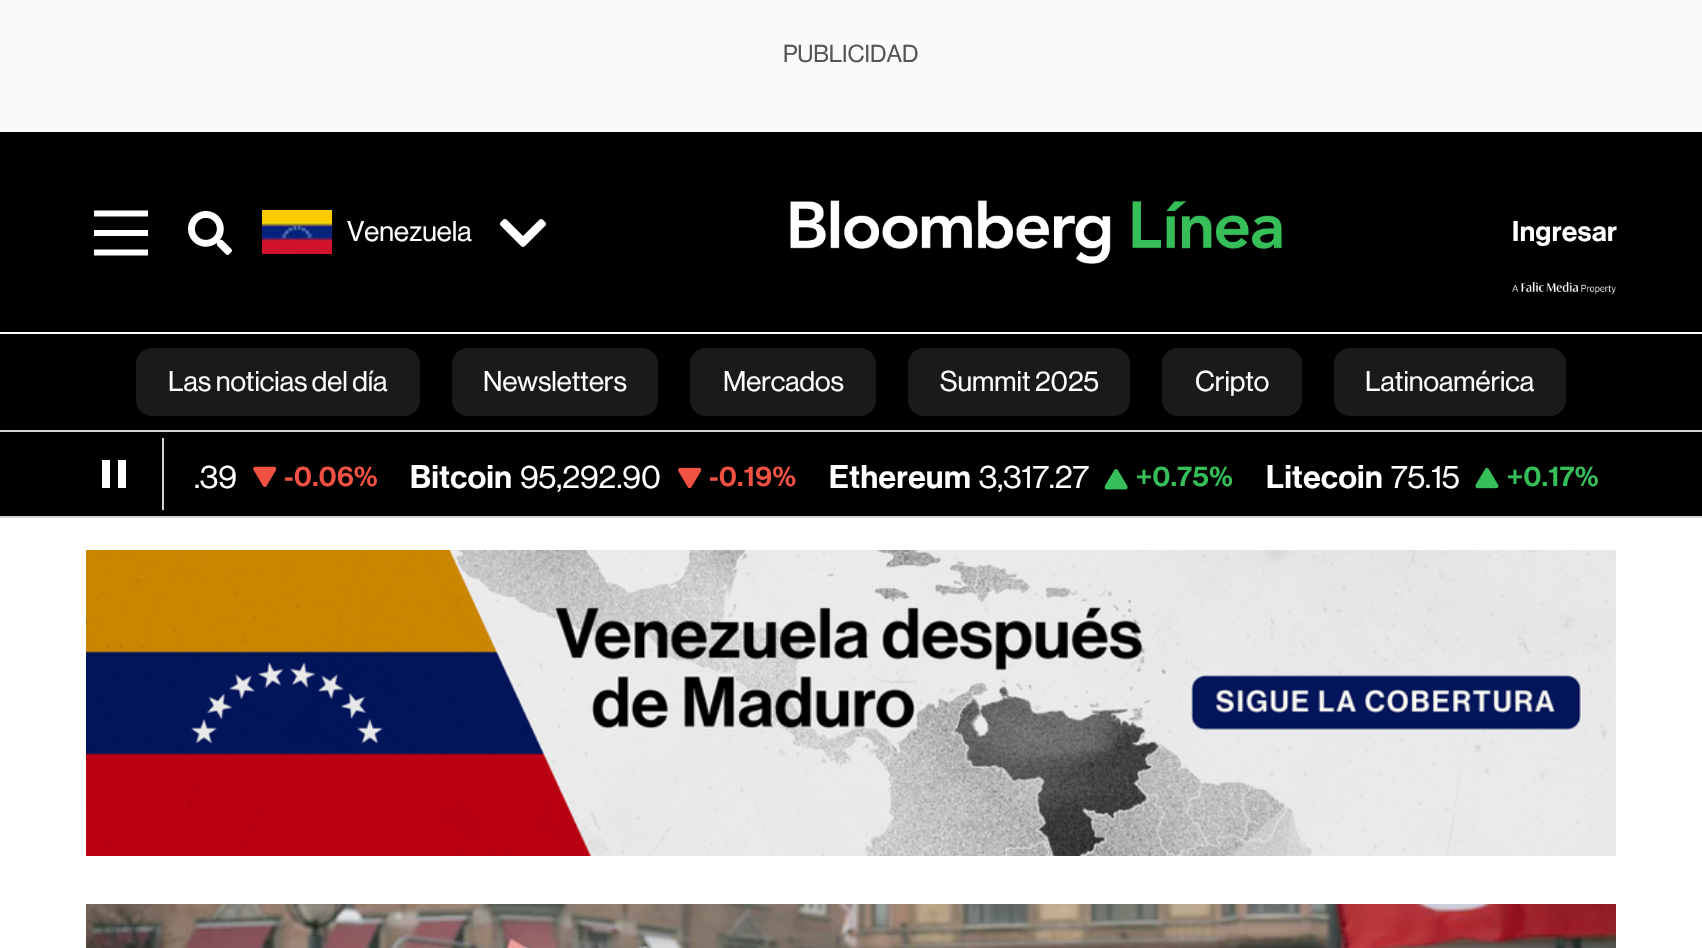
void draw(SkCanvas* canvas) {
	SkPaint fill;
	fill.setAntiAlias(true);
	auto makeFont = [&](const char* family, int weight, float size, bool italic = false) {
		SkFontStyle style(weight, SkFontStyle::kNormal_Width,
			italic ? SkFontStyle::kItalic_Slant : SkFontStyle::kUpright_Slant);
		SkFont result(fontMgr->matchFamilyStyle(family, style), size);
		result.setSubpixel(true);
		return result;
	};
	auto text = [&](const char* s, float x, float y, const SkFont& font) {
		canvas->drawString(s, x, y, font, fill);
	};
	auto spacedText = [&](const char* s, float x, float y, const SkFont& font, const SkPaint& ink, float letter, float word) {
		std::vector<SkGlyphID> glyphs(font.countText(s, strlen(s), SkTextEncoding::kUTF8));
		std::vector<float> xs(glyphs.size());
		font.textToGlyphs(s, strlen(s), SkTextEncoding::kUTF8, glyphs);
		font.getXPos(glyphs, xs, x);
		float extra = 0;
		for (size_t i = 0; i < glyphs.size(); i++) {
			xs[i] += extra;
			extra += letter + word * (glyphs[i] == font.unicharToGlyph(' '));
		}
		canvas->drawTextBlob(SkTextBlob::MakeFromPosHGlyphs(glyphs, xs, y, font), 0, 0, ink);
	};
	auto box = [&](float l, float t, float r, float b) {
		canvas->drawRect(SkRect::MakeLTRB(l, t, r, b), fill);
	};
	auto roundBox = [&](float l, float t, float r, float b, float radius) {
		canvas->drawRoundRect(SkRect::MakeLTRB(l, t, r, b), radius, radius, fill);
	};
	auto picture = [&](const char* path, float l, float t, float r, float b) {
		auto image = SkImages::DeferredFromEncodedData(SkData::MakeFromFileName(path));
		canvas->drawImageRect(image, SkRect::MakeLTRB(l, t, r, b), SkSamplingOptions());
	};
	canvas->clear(0xFFFFFFFF);
	fill.setColor(0xFFFAFAFA);
	box(0, 0, 1702, 132);
	fill.setColor(0xFF000000);
	box(0, 132, 1702, 332);
	fill.setStyle(SkPaint::kStroke_Style);
	fill.setStrokeWidth(6);
	fill.setColor(0xFFFFFFFF);
	canvas->drawPath(SkPathBuilder().moveTo(148, 233).lineTo(94, 233).moveTo(148, 213.5f).lineTo(94, 213.5f).moveTo(148, 252.5f).lineTo(94, 252.5f).detach(), fill);
	picture("image0.png", 188, 211, 232, 255);
	picture("image1.png", 262, 210, 332, 254);
	picture("image2.png", 500, 219, 546, 247);
	picture("image3.png", 790, 200, 1282, 264);
	picture("image4.png", 1512, 282, 1616, 294);
	fill.setStyle(SkPaint::kFill_Style);
	fill.setColor(0xFF000000);
	box(0, 334, 1702, 430);
	fill.setColor(0xFF1A1A1A);
	roundBox(136, 348, 420, 416, 16);
	roundBox(452, 348, 658, 416, 16);
	roundBox(690, 348, 876, 416, 16);
	roundBox(908, 348, 1130, 416, 16);
	roundBox(1162, 348, 1302, 416, 16);
	roundBox(1334, 348, 1566, 416, 16);
	fill.setColor(0xFF000000);
	box(0, 432, 1702, 516);
	fill.setColor(0xFFD1D5DB);
	box(0, 430, 1702, 432);
	box(0, 516, 1702, 518);
	fill.setColor(0xFFFFFFFF);
	canvas->drawPath(SkPathBuilder().moveTo(102, 488).lineTo(110, 488).lineTo(110, 460).lineTo(102, 460).close().moveTo(118, 460).lineTo(118, 488).lineTo(126, 488).lineTo(126, 460).close().detach(), fill);
	fill.setColor(0xFFD1D5DB);
	box(162, 438, 164, 510);
	picture("image5.png", 253, 466, 277, 487);
	picture("image6.png", 678, 467, 702, 489);
	picture("image7.png", 1104, 469, 1128, 490);
	picture("image8.png", 1475, 468, 1499, 489);
	picture("image9.png", 86, 550, 1616, 856);
	picture("image10.png", 86, 904, 1616, 948);
	auto font1 = makeFont("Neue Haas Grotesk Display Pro", 500, 24);
	fill.setColor(0xFF555555);
	text("PUBLICIDAD", 783, 62, font1);
	auto font2 = makeFont("Neue Haas Grotesk Display Pro", 500, 28);
	fill.setColor(0xFFFFFFFF);
	text("Venezuela", 347, 241, font2);
	auto font3 = makeFont("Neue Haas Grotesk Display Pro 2", 500, 28);
	spacedText("Ingresar", 1512, 241, font3, fill, 0.5f, 0);
	text("Las noticias del día", 168, 391, font2);
	text("Newsletters", 483, 391, font2);
	text("Mercados", 723, 391, font2);
	text("Summit 2025", 940, 391, font2);
	text("Cripto", 1195, 391, font2);
	text("Latinoamérica", 1365, 391, font2);
	auto font4 = makeFont("Neue Haas Grotesk Display Pro", 500, 32);
	text(".39", 194, 488, font4);
	fill.setColor(0xFFF05143);
	spacedText("-0.06%", 284, 486, font3, fill, 0.5f, 0);
	auto font5 = makeFont("Neue Haas Grotesk Display Pro 2", 500, 32);
	fill.setColor(0xFFFFFFFF);
	spacedText("Bitcoin", 410, 488, font5, fill, 0.5f, 0);
	text("95,292.90", 520, 488, font4);
	fill.setColor(0xFFF05143);
	spacedText("-0.19%", 709, 486, font3, fill, 0.5f, 0);
	fill.setColor(0xFFFFFFFF);
	spacedText("Ethereum", 829, 488, font5, fill, 0.5f, 0);
	text("3,317.27", 979, 488, font4);
	fill.setColor(0xFF36BF58);
	spacedText("+0.75%", 1136, 486, font3, fill, 0.5f, 0);
	fill.setColor(0xFFFFFFFF);
	spacedText("Litecoin", 1266, 488, font5, fill, 0.5f, 0);
	text("75.15", 1391, 488, font4);
	fill.setColor(0xFF36BF58);
	spacedText("+0.17%", 1507, 486, font3, fill, 0.5f, 0);
}
